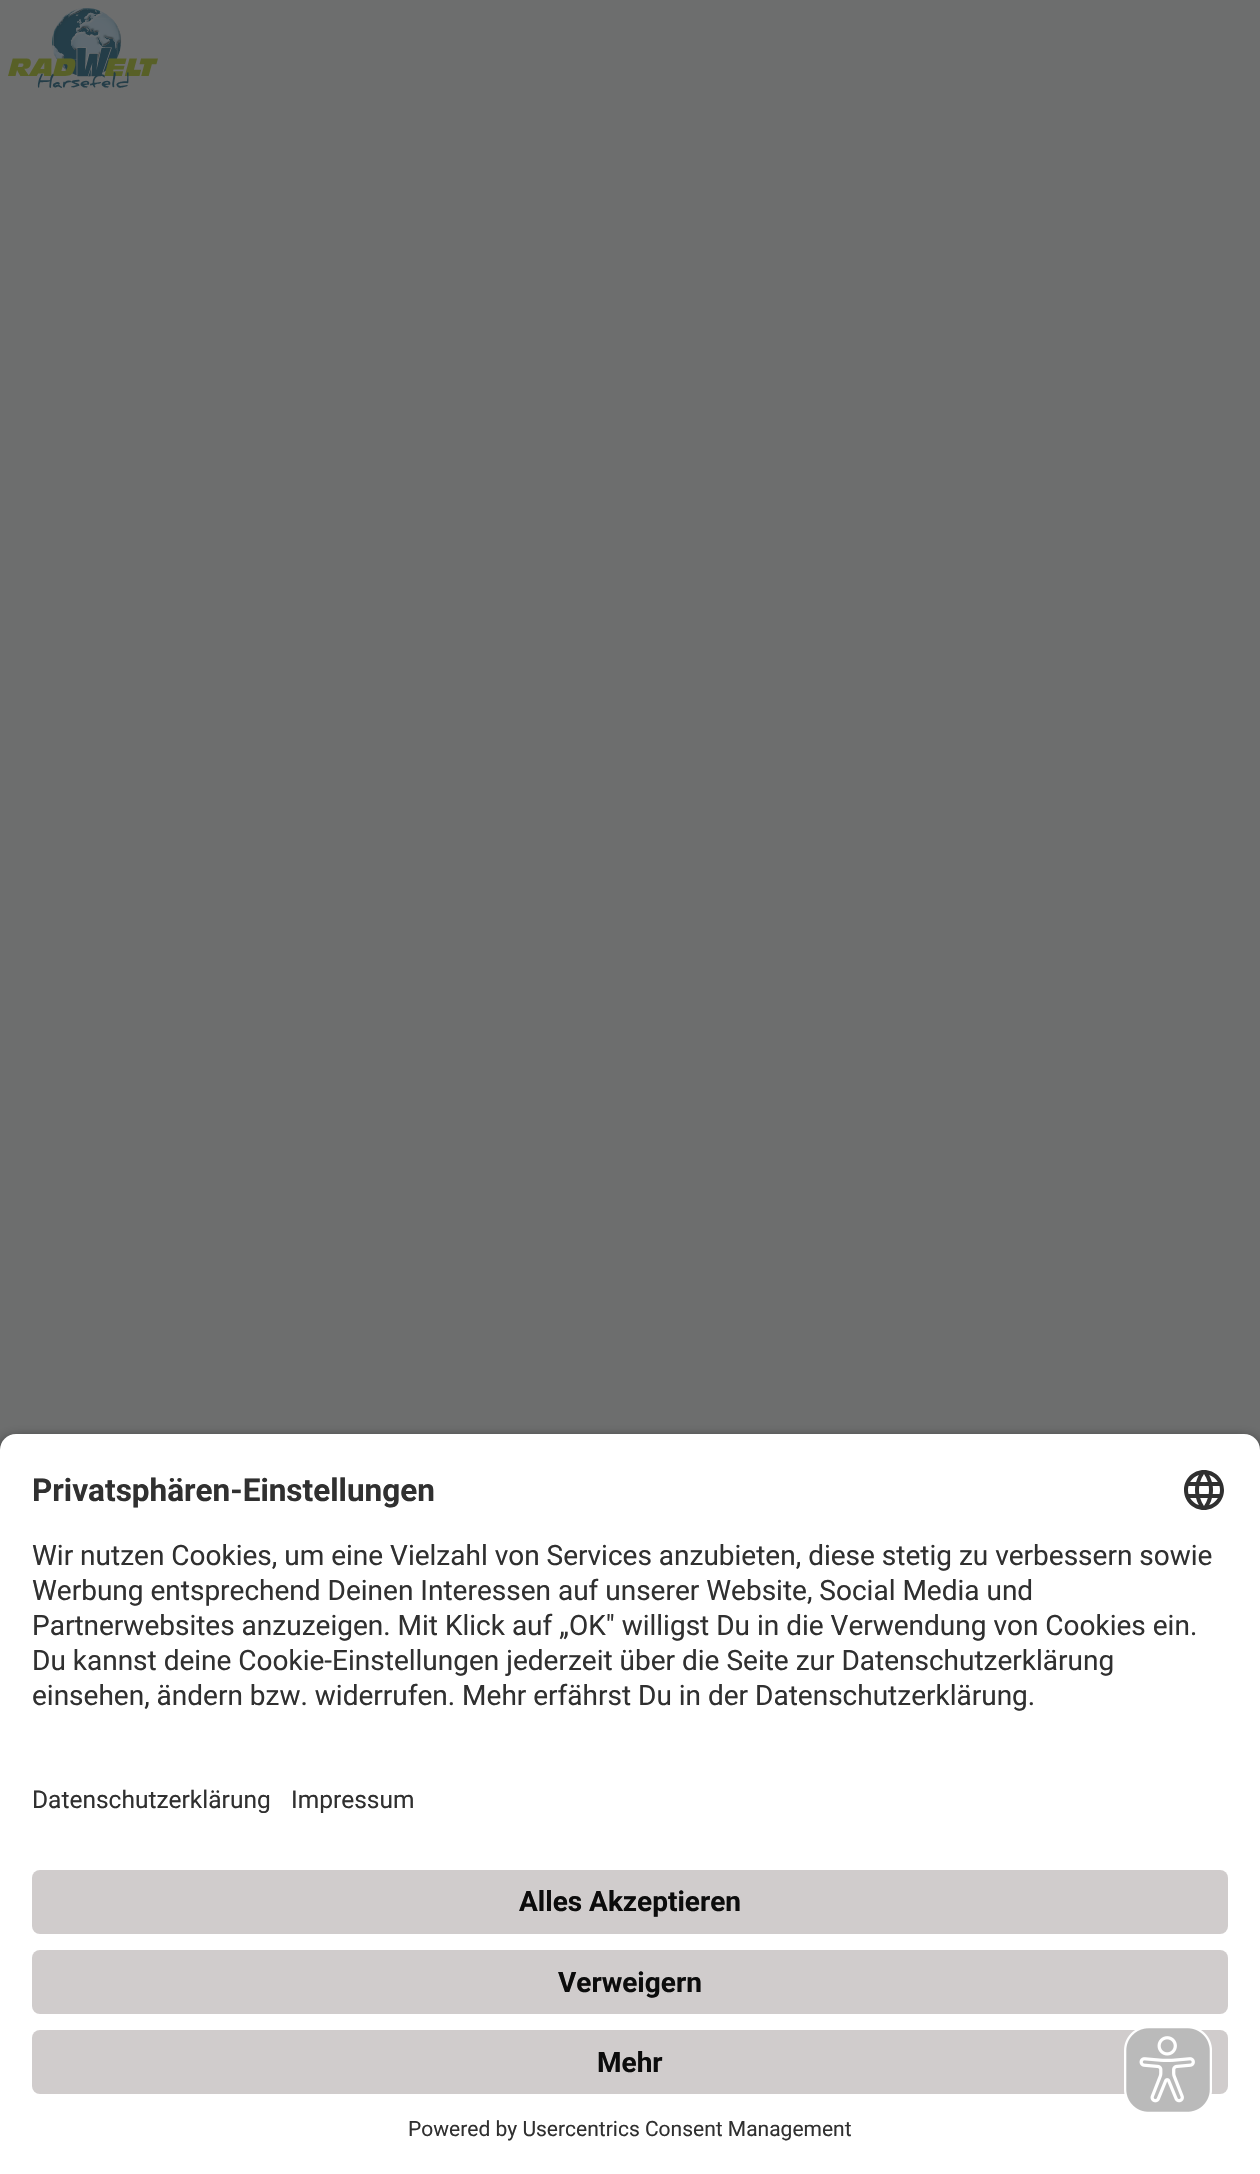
void draw(SkCanvas* canvas) {
	SkPaint fill;
	fill.setAntiAlias(true);
	auto makeFont = [&](const char* family, int weight, float size, bool italic = false) {
		SkFontStyle style(weight, SkFontStyle::kNormal_Width,
			italic ? SkFontStyle::kItalic_Slant : SkFontStyle::kUpright_Slant);
		SkFont result(fontMgr->matchFamilyStyle(family, style), size);
		result.setSubpixel(true);
		return result;
	};
	auto text = [&](const char* s, float x, float y, const SkFont& font) {
		canvas->drawString(s, x, y, font, fill);
	};
	auto box = [&](float l, float t, float r, float b) {
		canvas->drawRect(SkRect::MakeLTRB(l, t, r, b), fill);
	};
	auto roundBox = [&](float l, float t, float r, float b, float radius) {
		canvas->drawRoundRect(SkRect::MakeLTRB(l, t, r, b), radius, radius, fill);
	};
	auto picture = [&](const char* path, float l, float t, float r, float b) {
		auto image = SkImages::DeferredFromEncodedData(SkData::MakeFromFileName(path));
		canvas->drawImageRect(image, SkRect::MakeLTRB(l, t, r, b), SkSamplingOptions());
	};
	canvas->clear(0xFF6D6E6E);
	picture("image0.png", 8, 8, 158, 88);
	fill.setColor(0xCC000000);
	fill.setMaskFilter(SkMaskFilter::MakeBlur(kNormal_SkBlurStyle, 7));
	canvas->drawRoundRect(SkRect::MakeLTRB(0, 1440, 1260, 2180), 16, 16, fill);
	fill.setMaskFilter(nullptr);
	fill.setColor(0xFFFFFFFF);
	canvas->drawPath(SkPathBuilder().moveTo(16, 1434).lineTo(1244, 1434).cubicTo(1253, 1434, 1260, 1441, 1260, 1450).lineTo(1260, 1754).lineTo(0, 1754).lineTo(0, 1450).cubicTo(0, 1441, 7, 1434, 16, 1434).close().detach(), fill);
	picture("image1.png", 1184, 1470, 1224, 1510);
	box(0, 1754, 1260, 2174);
	fill.setColor(0xFFD0CCCC);
	roundBox(32, 1870, 1228, 1934, 8);
	roundBox(32, 1950, 1228, 2014, 8);
	roundBox(32, 2030, 1228, 2094, 8);
	picture("image2.png", 1124, 2028, 1212, 2112);
	auto font1 = makeFont("Roboto", 700, 31.5f);
	fill.setColor(0xFF303030);
	text("Privatsphären-Einstellungen", 32, 1501, font1);
	auto font2 = makeFont("Roboto", 400, 28);
	text("Wir nutzen Cookies, um eine Vielzahl von Services anzubieten, diese stetig zu verbessern sowie", 32, 1565, font2);
	text("Werbung entsprechend Deinen Interessen auf unserer Website, Social Media und", 32, 1600, font2);
	text("Partnerwebsites anzuzeigen. Mit Klick auf „OK\" willigst Du in die Verwendung von Cookies ein.", 32, 1635, font2);
	text("Du kannst deine Cookie-Einstellungen jederzeit über die Seite zur Datenschutzerklärung", 32, 1670, font2);
	text("einsehen, ändern bzw. widerrufen. Mehr erfährst Du in der Datenschutzerklärung.", 32, 1705, font2);
	auto font3 = makeFont("Roboto", 400, 24.5f);
	text("Datenschutzerklärung", 32, 1808, font3);
	text("Impressum", 291, 1808, font3);
	auto font4 = makeFont("Roboto", 700, 28);
	fill.setColor(0xFF0C0C0C);
	text("Alles Akzeptieren", 519, 1911, font4);
	text("Verweigern", 558, 1992, font4);
	text("Mehr", 597, 2072, font4);
	auto font5 = makeFont("Roboto", 400, 21);
	fill.setColor(0xFF303030);
	text("Powered by Usercentrics Consent Management", 408, 2136, font5);
}
